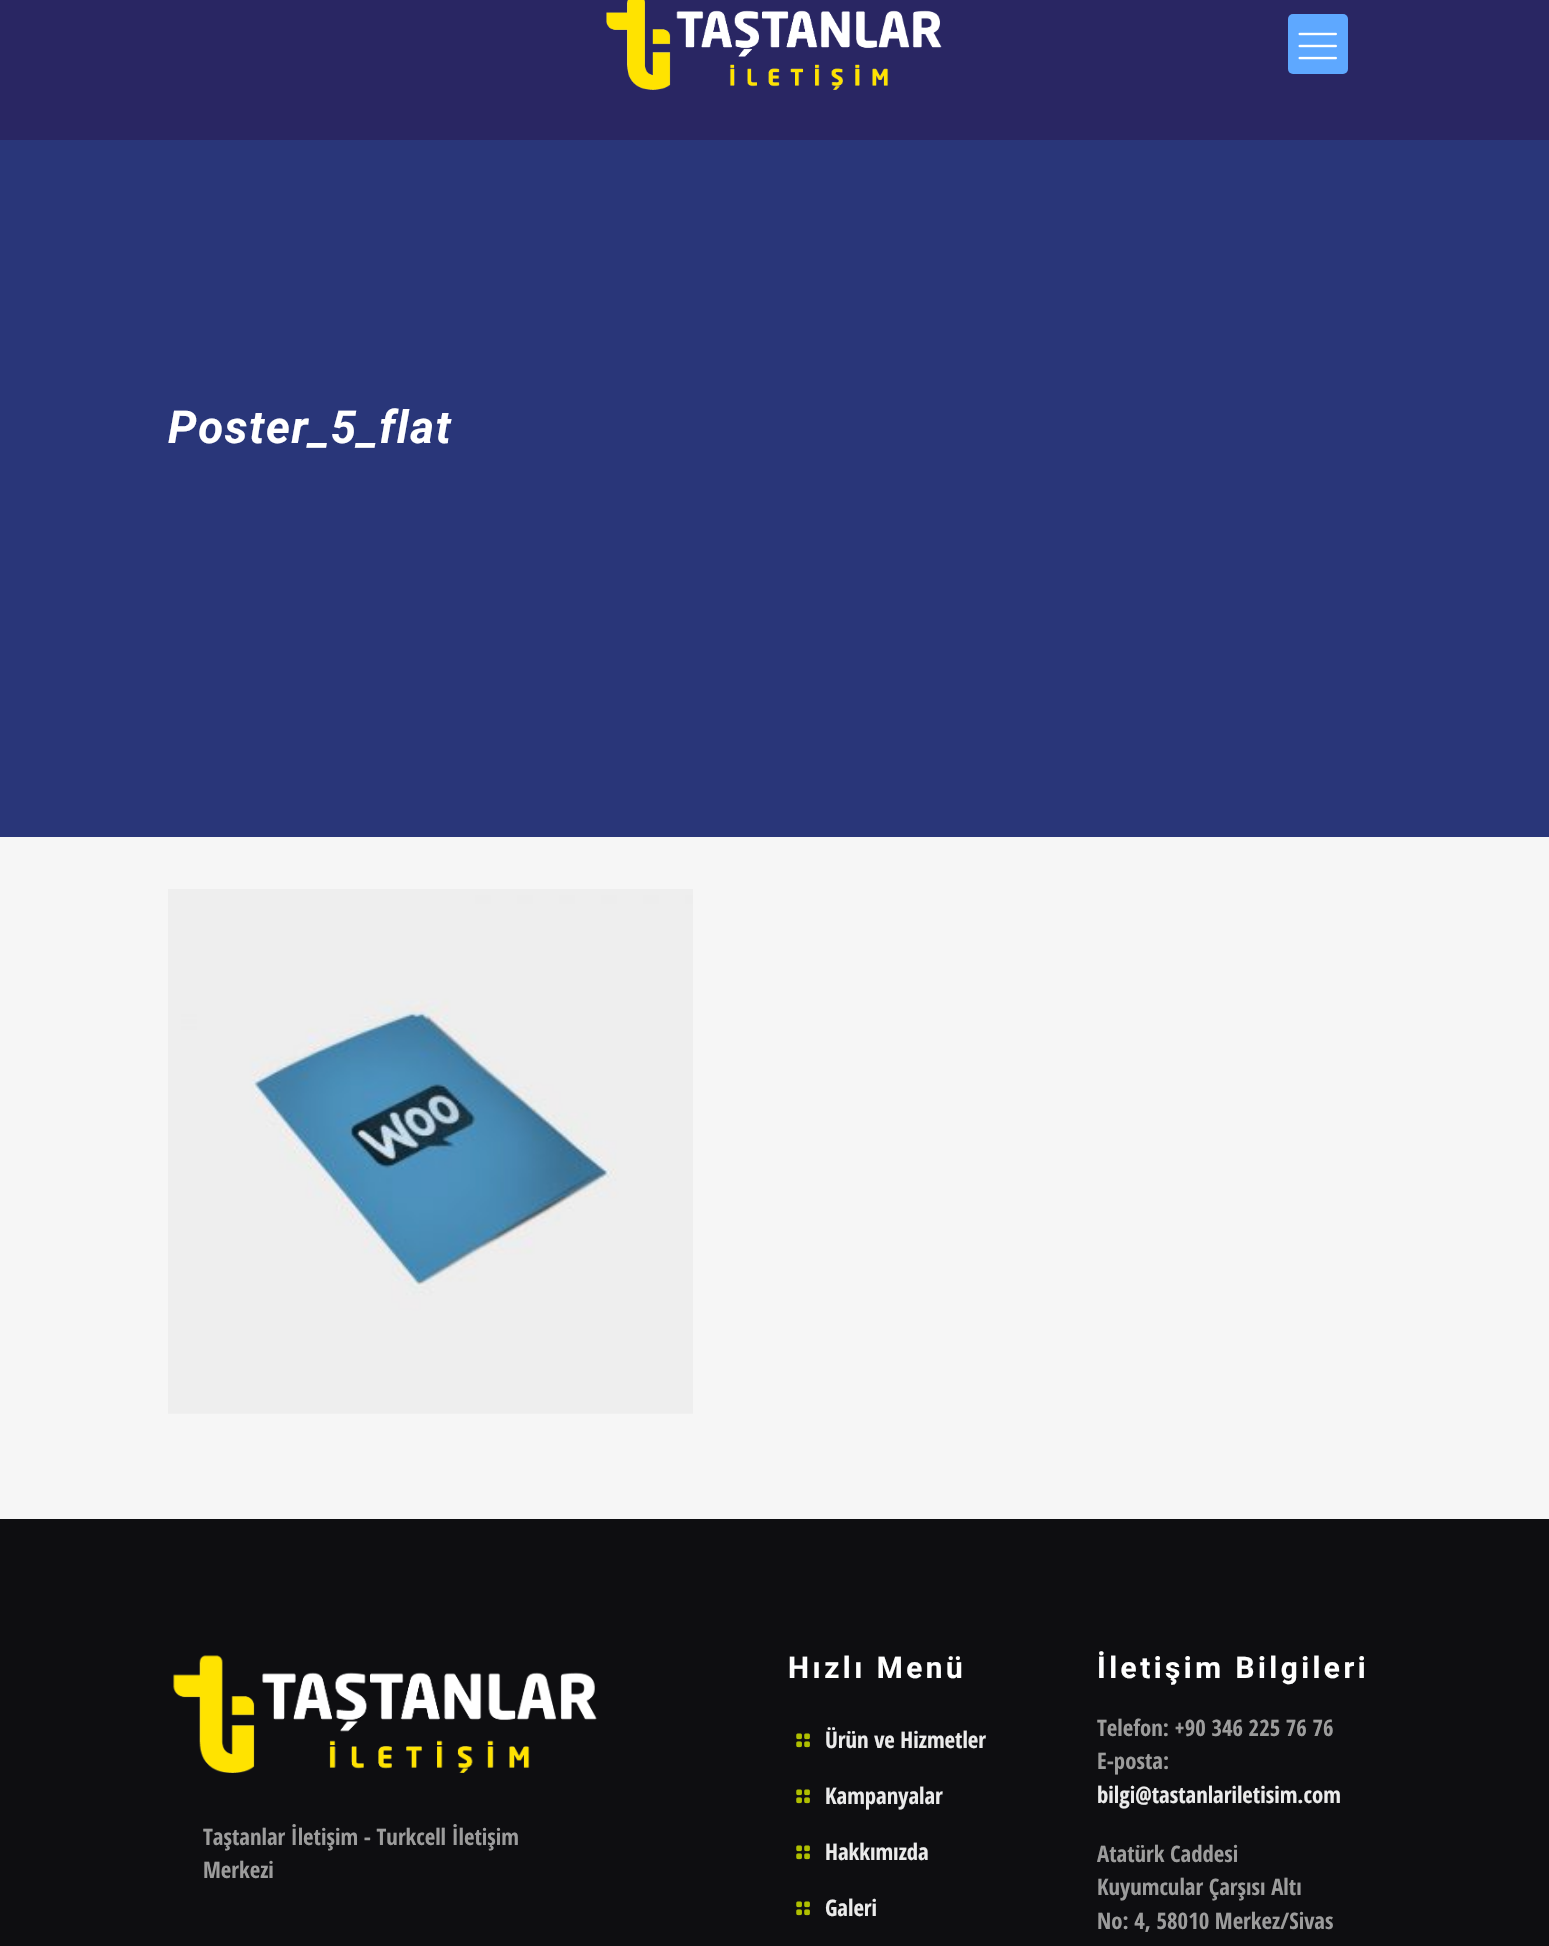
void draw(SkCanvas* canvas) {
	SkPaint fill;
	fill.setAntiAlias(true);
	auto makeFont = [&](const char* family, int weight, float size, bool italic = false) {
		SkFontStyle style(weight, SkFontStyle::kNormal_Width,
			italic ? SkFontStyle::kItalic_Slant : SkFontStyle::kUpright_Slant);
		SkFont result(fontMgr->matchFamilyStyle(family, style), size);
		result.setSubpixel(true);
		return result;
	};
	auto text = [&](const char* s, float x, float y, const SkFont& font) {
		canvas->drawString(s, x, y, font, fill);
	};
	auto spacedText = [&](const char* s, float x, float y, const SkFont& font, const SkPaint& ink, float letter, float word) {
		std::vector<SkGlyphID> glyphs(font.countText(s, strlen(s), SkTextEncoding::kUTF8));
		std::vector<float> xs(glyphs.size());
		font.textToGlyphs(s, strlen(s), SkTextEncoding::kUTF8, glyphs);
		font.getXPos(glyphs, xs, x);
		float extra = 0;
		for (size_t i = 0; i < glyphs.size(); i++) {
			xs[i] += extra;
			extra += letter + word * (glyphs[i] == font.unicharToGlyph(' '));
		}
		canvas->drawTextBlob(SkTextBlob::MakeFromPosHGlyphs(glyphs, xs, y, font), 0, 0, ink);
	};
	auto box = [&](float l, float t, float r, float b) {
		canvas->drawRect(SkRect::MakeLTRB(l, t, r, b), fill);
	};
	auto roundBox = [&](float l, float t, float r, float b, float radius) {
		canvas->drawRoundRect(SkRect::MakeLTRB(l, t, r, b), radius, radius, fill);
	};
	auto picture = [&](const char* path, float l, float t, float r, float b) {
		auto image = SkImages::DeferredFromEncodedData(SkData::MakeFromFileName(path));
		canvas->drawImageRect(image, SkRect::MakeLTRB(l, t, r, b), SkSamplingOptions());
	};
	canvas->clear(0xFFF6F6F6);
	fill.setColor(0xFF293679);
	box(0, 140, 1549, 837);
	fill.setColor(0xFF292663);
	box(0, 0, 1549, 140);
	picture("image0.png", 606, 0, 942, 90);
	fill.setColor(0xFF5EA8FF);
	roundBox(1288, 14, 1348, 74, 5);
	picture("image1.png", 1298, 32, 1337, 60);
	picture("image2.png", 168, 889, 693, 1414);
	fill.setColor(0xFF0E0E11);
	box(0, 1519, 1549, 1946);
	picture("image3.png", 173, 1655, 597, 1773);
	picture("image4.png", 796, 1733, 810, 1748);
	picture("image4.png", 796, 1789, 810, 1804);
	picture("image4.png", 796, 1845, 810, 1860);
	picture("image4.png", 796, 1901, 810, 1916);
	auto font1 = makeFont("Roboto", 700, 45.5f, true);
	fill.setColor(0xFFFFFFFF);
	spacedText("Poster_5_flat", 168, 443, font1, fill, 1.75f, 0);
	auto font2 = makeFont("Open Sans Condensed", 700, 22.75f);
	fill.setColor(0xFF9C9C9C);
	text("Taştanlar İletişim - Turkcell İletişim", 203, 1845, font2);
	text("Merkezi", 203, 1878, font2);
	auto font3 = makeFont("Roboto", 700, 29.75f);
	fill.setColor(0xFFFFFFFF);
	spacedText("Hızlı Menü", 788, 1678, font3, fill, 3.5f, 0);
	fill.setColor(0xFFEBEBEB);
	text("Ürün ve Hizmetler", 825, 1748, font2);
	text("Kampanyalar", 825, 1804, font2);
	text("Hakkımızda", 825, 1860, font2);
	text("Galeri", 825, 1916, font2);
	fill.setColor(0xFFFFFFFF);
	spacedText("İletişim Bilgileri", 1097, 1678, font3, fill, 3.5f, 0);
	fill.setColor(0xFF9C9C9C);
	text("Telefon: +90 346 225 76 76", 1097, 1736, font2);
	text("E-posta:", 1097, 1769, font2);
	fill.setColor(0xFFEBEBEB);
	text("bilgi@tastanlariletisim.com", 1097, 1803, font2);
	fill.setColor(0xFF9C9C9C);
	text("Atatürk Caddesi", 1097, 1862, font2);
	text("Kuyumcular Çarşısı Altı", 1097, 1895, font2);
	text("No: 4, 58010 Merkez/Sivas", 1097, 1929, font2);
}
